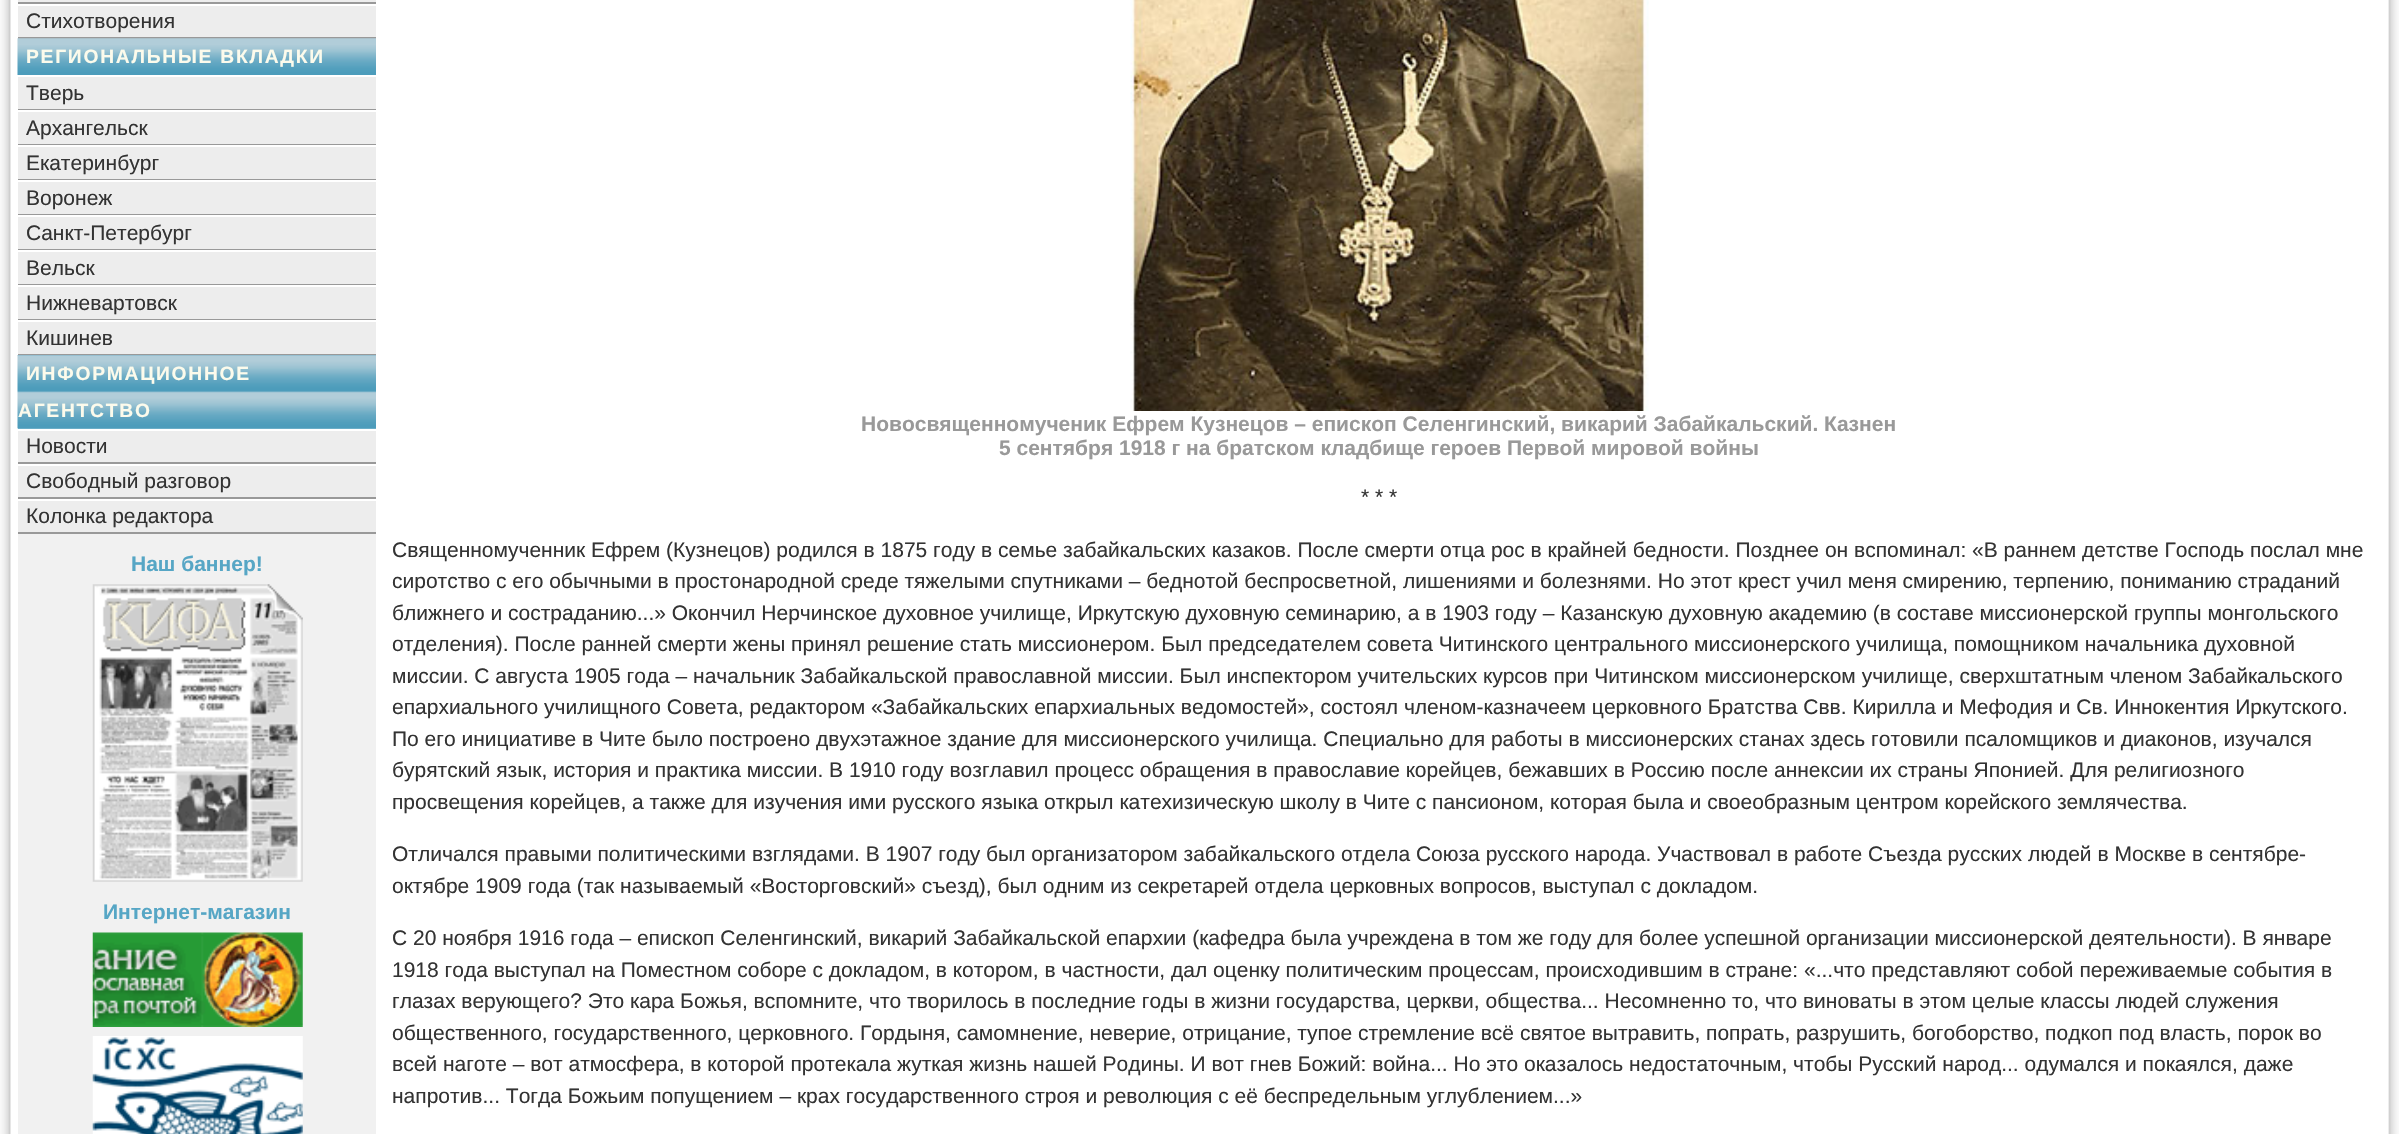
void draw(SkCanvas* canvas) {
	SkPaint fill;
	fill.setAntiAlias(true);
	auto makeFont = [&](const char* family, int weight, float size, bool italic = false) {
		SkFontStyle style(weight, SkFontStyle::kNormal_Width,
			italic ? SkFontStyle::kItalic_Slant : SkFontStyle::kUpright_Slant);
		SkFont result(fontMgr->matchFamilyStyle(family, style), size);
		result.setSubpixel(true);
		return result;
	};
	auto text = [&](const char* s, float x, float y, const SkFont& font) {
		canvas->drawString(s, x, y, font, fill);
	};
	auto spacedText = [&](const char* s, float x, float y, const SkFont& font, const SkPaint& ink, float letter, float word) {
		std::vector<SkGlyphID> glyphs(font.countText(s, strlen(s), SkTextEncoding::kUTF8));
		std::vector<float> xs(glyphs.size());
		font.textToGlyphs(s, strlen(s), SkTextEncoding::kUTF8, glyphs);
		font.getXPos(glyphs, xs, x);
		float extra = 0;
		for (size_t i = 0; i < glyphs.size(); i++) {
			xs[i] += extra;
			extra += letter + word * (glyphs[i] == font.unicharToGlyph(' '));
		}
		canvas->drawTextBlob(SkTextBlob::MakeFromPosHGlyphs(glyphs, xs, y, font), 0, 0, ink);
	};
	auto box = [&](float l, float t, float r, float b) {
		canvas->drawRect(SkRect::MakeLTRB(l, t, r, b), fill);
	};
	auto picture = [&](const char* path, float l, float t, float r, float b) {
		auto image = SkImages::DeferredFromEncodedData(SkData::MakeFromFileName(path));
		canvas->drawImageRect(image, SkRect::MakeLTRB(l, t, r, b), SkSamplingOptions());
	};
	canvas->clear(0xFFFFFFFF);
	picture("image0.png", 0, 0, 11, 1134);
	fill.setColor(0xFFF1F1F1);
	box(18, 534, 376, 1134);
	fill.setColor(0xFFEDEDED);
	box(18, 0, 376, 2);
	fill.setColor(0xFF999999);
	box(18, 2, 376, 4);
	fill.setColor(0xFFEDEDED);
	box(18, 6, 376, 37);
	fill.setColor(0xFF999999);
	box(18, 37, 376, 39);
	picture("image1.png", 17, 38, 376, 75);
	fill.setColor(0xFFEDEDED);
	box(18, 77, 376, 109);
	fill.setColor(0xFF999999);
	box(18, 109, 376, 110);
	fill.setColor(0xFFEDEDED);
	box(18, 112, 376, 144);
	fill.setColor(0xFF999999);
	box(18, 144, 376, 145);
	fill.setColor(0xFFEDEDED);
	box(18, 147, 376, 179);
	fill.setColor(0xFF999999);
	box(18, 179, 376, 180);
	fill.setColor(0xFFEDEDED);
	box(18, 182, 376, 214);
	fill.setColor(0xFF999999);
	box(18, 214, 376, 215);
	fill.setColor(0xFFEDEDED);
	box(18, 217, 376, 249);
	fill.setColor(0xFF999999);
	box(18, 249, 376, 250);
	fill.setColor(0xFFEDEDED);
	box(18, 252, 376, 284);
	fill.setColor(0xFF999999);
	box(18, 284, 376, 285);
	fill.setColor(0xFFEDEDED);
	box(18, 287, 376, 319);
	fill.setColor(0xFF999999);
	box(18, 319, 376, 320);
	fill.setColor(0xFFEDEDED);
	box(18, 322, 376, 354);
	fill.setColor(0xFF999999);
	box(18, 354, 376, 355);
	fill.setColor(0xFF56A6C5);
	box(18, 428, 376, 429);
	picture("image2.png", 17, 355, 376, 429);
	fill.setColor(0xFFEDEDED);
	box(18, 431, 376, 462);
	fill.setColor(0xFF999999);
	box(18, 462, 376, 464);
	fill.setColor(0xFFEDEDED);
	box(18, 466, 376, 497);
	fill.setColor(0xFF999999);
	box(18, 497, 376, 499);
	fill.setColor(0xFFEDEDED);
	box(18, 501, 376, 532);
	fill.setColor(0xFF999999);
	box(18, 532, 376, 534);
	picture("image3.png", 92, 584, 303, 882);
	picture("image4.png", 92, 932, 303, 1027);
	picture("image5.png", 92, 1036, 303, 1134);
	picture("image6.png", 1130, 0, 1649, 411);
	picture("image7.png", 2388, 0, 2399, 1134);
	auto font1 = makeFont("Liberation Sans", 400, 21);
	fill.setColor(0xFF333333);
	text("Стихотворения", 26, 28, font1);
	auto font2 = makeFont("Liberation Sans", 700, 19.25f);
	fill.setColor(0xFFFCFBEC);
	spacedText("РЕГИОНАЛЬНЫЕ ВКЛАДКИ", 26, 63, font2, fill, 1.75f, 0);
	fill.setColor(0xFF333333);
	text("Тверь", 26, 100, font1);
	text("Архангельск", 26, 135, font1);
	text("Екатеринбург", 26, 170, font1);
	text("Воронеж", 26, 205, font1);
	text("Санкт-Петербург", 26, 240, font1);
	text("Вельск", 26, 275, font1);
	text("Нижневартовск", 26, 310, font1);
	text("Кишинев", 26, 345, font1);
	fill.setColor(0xFFFCFBEC);
	spacedText("ИНФОРМАЦИОННОЕ", 26, 380, font2, fill, 1.75f, 0);
	spacedText("АГЕНТСТВО", 18, 417, font2, fill, 1.75f, 0);
	fill.setColor(0xFF333333);
	text("Новости", 26, 453, font1);
	text("Свободный разговор", 26, 488, font1);
	text("Колонка редактора", 26, 523, font1);
	auto font3 = makeFont("Liberation Sans", 700, 21);
	fill.setColor(0xFF56A6C5);
	text("Наш баннер!", 131, 571, font3);
	text("Интернет-магазин", 103, 919, font3);
	fill.setColor(0xFF999999);
	text("Новосвященномученик Ефрем Кузнецов – епископ Селенгинский, викарий Забайкальский. Казнен", 861, 431, font3);
	text("5 сентября 1918 г на братском кладбище героев Первой мировой войны", 999, 455, font3);
	fill.setColor(0xFF333333);
	text("* * *", 1361, 504, font1);
	text("Священномученник Ефрем (Кузнецов) родился в 1875 году в семье забайкальских казаков. После смерти отца рос в крайней бедности. Позднее он вспоминал: «В раннем детстве Господь послал мне", 392, 557, font1);
	text("сиротство с его обычными в простонародной среде тяжелыми спутниками – беднотой беспросветной, лишениями и болезнями. Но этот крест учил меня смирению, терпению, пониманию страданий", 392, 588, font1);
	text("ближнего и состраданию...» Окончил Нерчинское духовное училище, Иркутскую духовную семинарию, а в 1903 году – Казанскую духовную академию (в составе миссионерской группы монгольского", 392, 620, font1);
	text("отделения). После ранней смерти жены принял решение стать миссионером. Был председателем совета Читинского центрального миссионерского училища, помощником начальника духовной", 392, 651, font1);
	text("миссии. С августа 1905 года – начальник Забайкальской православной миссии. Был инспектором учительских курсов при Читинском миссионерском училище, сверхштатным членом Забайкальского", 392, 683, font1);
	text("епархиального училищного Совета, редактором «Забайкальских епархиальных ведомостей», состоял членом-казначеем церковного Братства Свв. Кирилла и Мефодия и Св. Иннокентия Иркутского.", 392, 714, font1);
	text("По его инициативе в Чите было построено двухэтажное здание для миссионерского училища. Специально для работы в миссионерских станах здесь готовили псаломщиков и диаконов, изучался", 392, 746, font1);
	text("бурятский язык, история и практика миссии. В 1910 году возглавил процесс обращения в православие корейцев, бежавших в Россию после аннексии их страны Японией. Для религиозного", 392, 777, font1);
	text("просвещения корейцев, а также для изучения ими русского языка открыл катехизическую школу в Чите с пансионом, которая была и своеобразным центром корейского землячества.", 392, 809, font1);
	text("Отличался правыми политическими взглядами. В 1907 году был организатором забайкальского отдела Союза русского народа. Участвовал в работе Съезда русских людей в Москве в сентябре-", 392, 861, font1);
	text("октябре 1909 года (так называемый «Восторговский» съезд), был одним из секретарей отдела церковных вопросов, выступал с докладом.", 392, 893, font1);
	text("С 20 ноября 1916 года – епископ Селенгинский, викарий Забайкальской епархии (кафедра была учреждена в том же году для более успешной организации миссионерской деятельности). В январе", 392, 945, font1);
	text("1918 года выступал на Поместном соборе с докладом, в котором, в частности, дал оценку политическим процессам, происходившим в стране: «...что представляют собой переживаемые события в", 392, 977, font1);
	text("глазах верующего? Это кара Божья, вспомните, что творилось в последние годы в жизни государства, церкви, общества... Несомненно то, что виноваты в этом целые классы людей служения", 392, 1008, font1);
	text("общественного, государственного, церковного. Гордыня, самомнение, неверие, отрицание, тупое стремление всё святое вытравить, попрать, разрушить, богоборство, подкоп под власть, порок во", 392, 1040, font1);
	text("всей наготе – вот атмосфера, в которой протекала жуткая жизнь нашей Родины. И вот гнев Божий: война... Но это оказалось недостаточным, чтобы Русский народ... одумался и покаялся, даже", 392, 1071, font1);
	text("напротив... Тогда Божьим попущением – крах государственного строя и революция с её беспредельным углублением...»", 392, 1103, font1);
}
